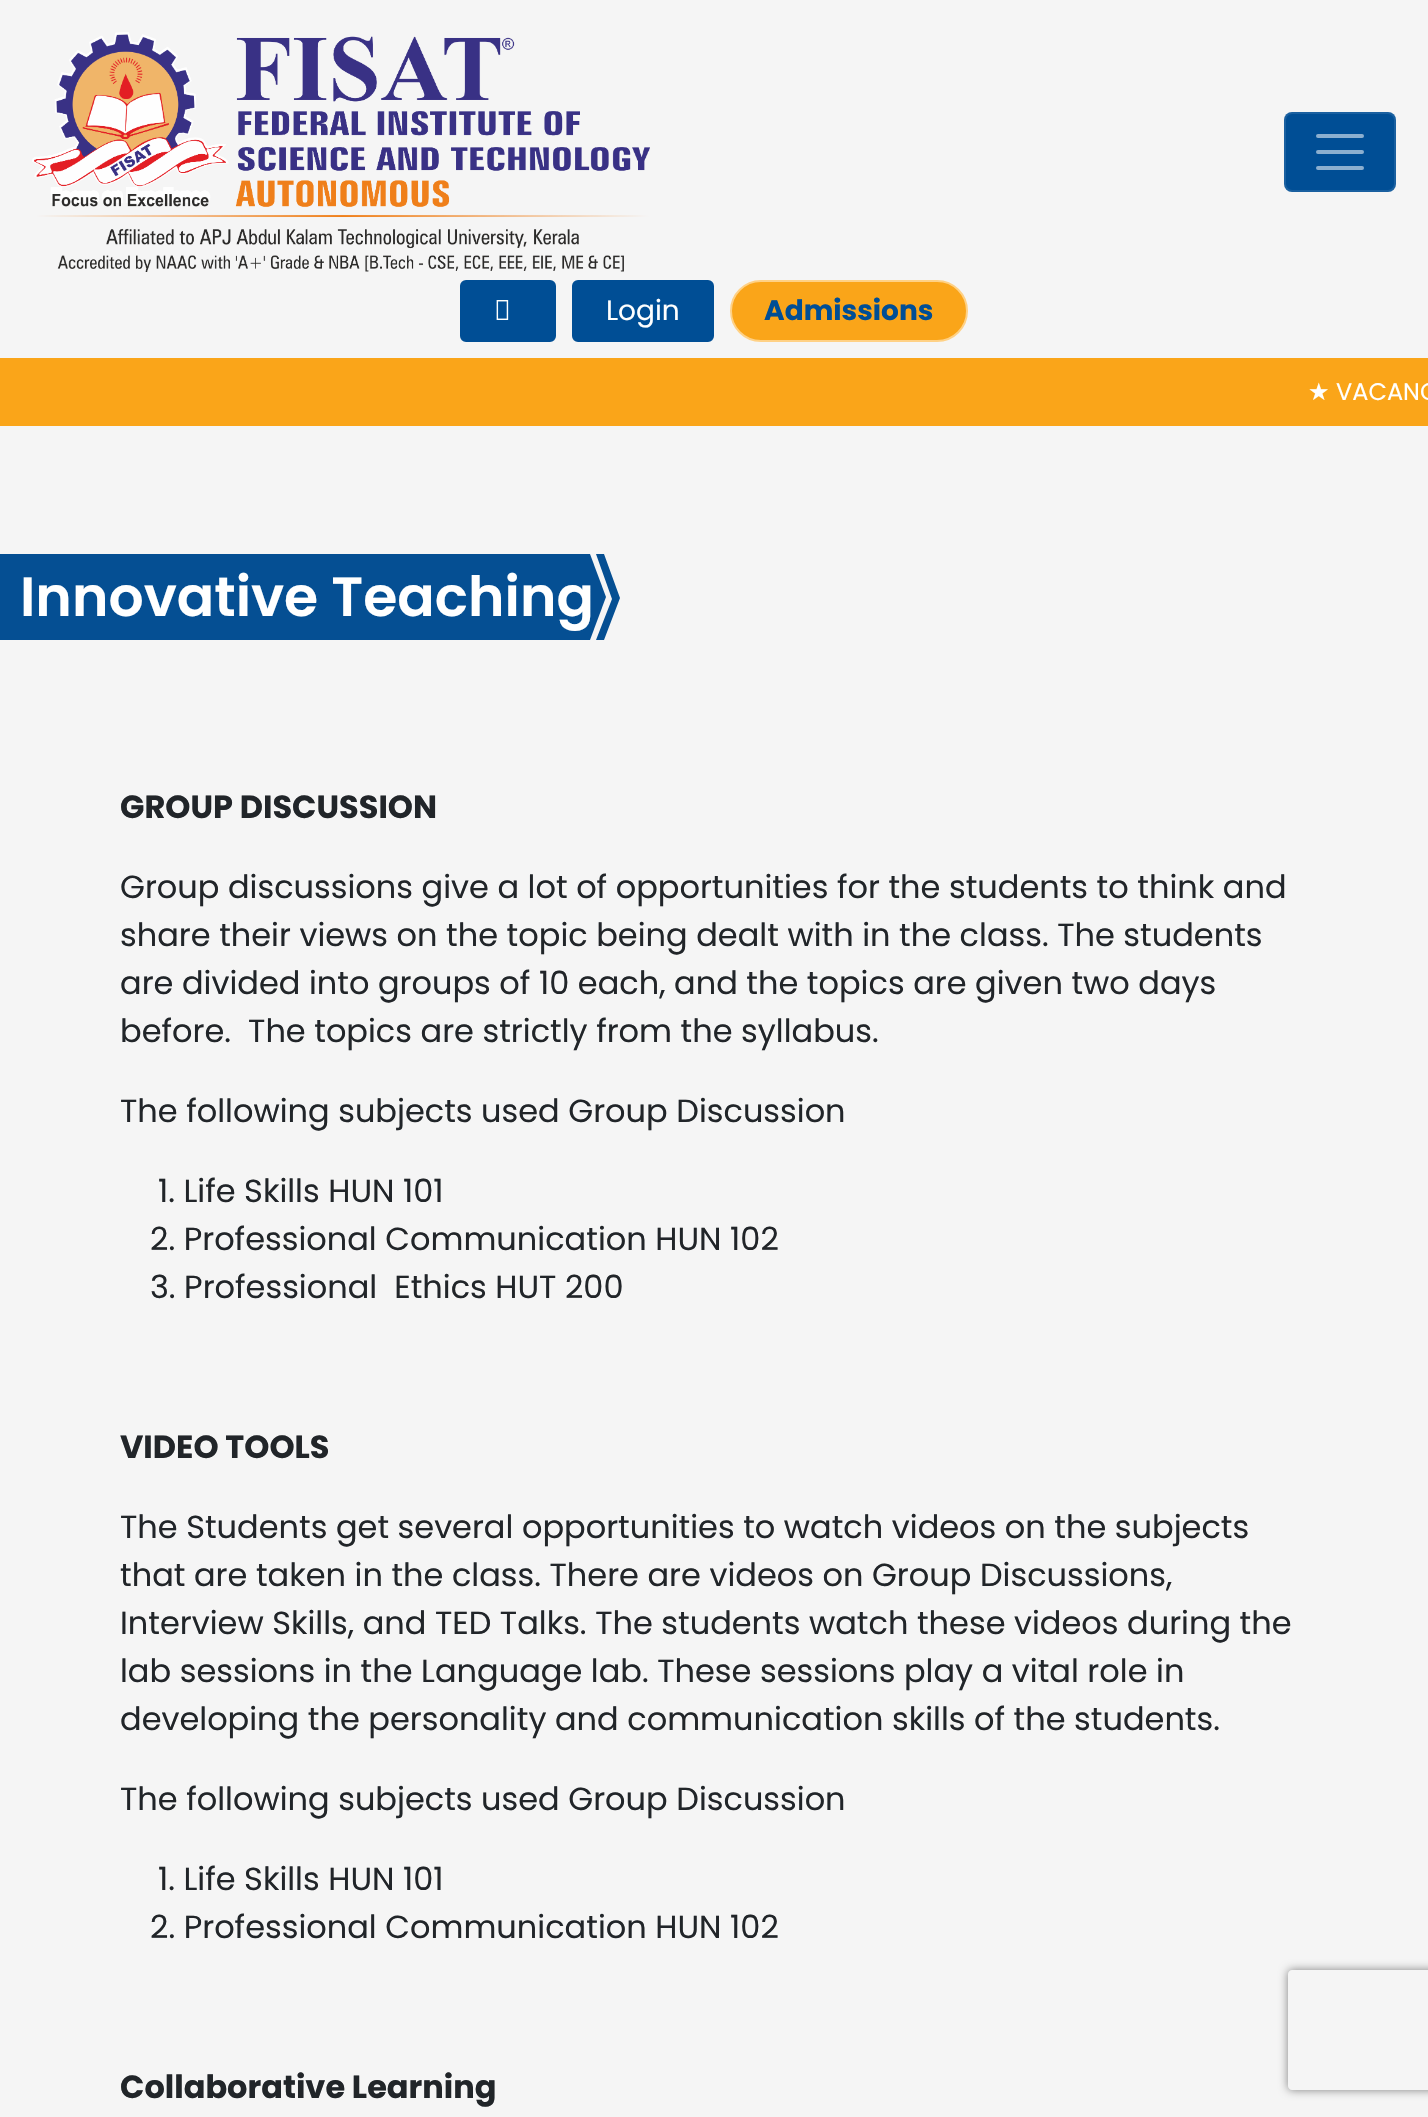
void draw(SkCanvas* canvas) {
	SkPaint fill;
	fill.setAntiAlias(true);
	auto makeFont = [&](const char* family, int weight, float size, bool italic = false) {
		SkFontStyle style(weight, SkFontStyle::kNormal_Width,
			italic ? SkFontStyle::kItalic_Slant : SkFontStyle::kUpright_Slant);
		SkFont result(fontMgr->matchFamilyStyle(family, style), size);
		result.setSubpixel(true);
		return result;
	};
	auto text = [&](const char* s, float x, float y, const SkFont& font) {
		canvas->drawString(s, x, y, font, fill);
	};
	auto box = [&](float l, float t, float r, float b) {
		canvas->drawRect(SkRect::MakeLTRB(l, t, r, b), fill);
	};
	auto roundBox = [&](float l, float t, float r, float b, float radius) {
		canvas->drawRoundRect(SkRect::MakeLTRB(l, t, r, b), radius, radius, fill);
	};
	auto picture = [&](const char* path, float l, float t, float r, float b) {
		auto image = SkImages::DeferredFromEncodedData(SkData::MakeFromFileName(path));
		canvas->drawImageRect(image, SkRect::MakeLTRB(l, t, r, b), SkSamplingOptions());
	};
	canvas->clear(0xFFF5F5F5);
	picture("image0.png", 32, 32, 650, 272);
	fill.setColor(0xFF004E95);
	roundBox(1284, 112, 1396, 192, 8);
	fill.setStyle(SkPaint::kStroke_Style);
	fill.setStrokeWidth(2);
	fill.setColor(0x1AFFFFFF);
	canvas->drawRoundRect(SkRect::MakeLTRB(1285, 113, 1395, 191), 7, 7, fill);
	fill.setStrokeWidth(4);
	fill.setStrokeCap(SkPaint::kRound_Cap);
	fill.setColor(0xFF8CAFCF);
	canvas->drawPath(SkPathBuilder().moveTo(1318, 136).lineTo(1362, 136).moveTo(1318, 152).lineTo(1362, 152).moveTo(1318, 168).lineTo(1362, 168).detach(), fill);
	fill.setStyle(SkPaint::kFill_Style);
	fill.setColor(0xFF004E95);
	canvas->drawRoundRect(SkRect::MakeLTRB(461, 281, 555, 341), 5, 5, fill);
	fill.setStyle(SkPaint::kStroke_Style);
	fill.setStrokeWidth(2);
	fill.setStrokeCap(SkPaint::kButt_Cap);
	canvas->drawRoundRect(SkRect::MakeLTRB(461, 281, 555, 341), 5, 5, fill);
	picture("image1.png", 496, 300, 509, 320);
	fill.setStyle(SkPaint::kFill_Style);
	canvas->drawRoundRect(SkRect::MakeLTRB(573, 281, 713, 341), 5, 5, fill);
	fill.setStyle(SkPaint::kStroke_Style);
	canvas->drawRoundRect(SkRect::MakeLTRB(573, 281, 713, 341), 5, 5, fill);
	fill.setStyle(SkPaint::kFill_Style);
	fill.setColor(0xFFFAA519);
	canvas->drawRoundRect(SkRect::MakeLTRB(731, 281, 967, 341), 30, 30, fill);
	fill.setStyle(SkPaint::kStroke_Style);
	fill.setColor(0xFFFFD185);
	canvas->drawRoundRect(SkRect::MakeLTRB(731, 281, 967, 341), 30, 30, fill);
	fill.setStyle(SkPaint::kFill_Style);
	fill.setColor(0xFFFAA519);
	box(0, 358, 1428, 426);
	fill.setColor(0xFF054F93);
	canvas->drawPath(SkPathBuilder().moveTo(606, 597).lineTo(590, 640).lineTo(-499, 640).lineTo(-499, 554).lineTo(590, 554).close().detach(), fill);
	canvas->drawPath(SkPathBuilder().moveTo(596, 554).lineTo(604, 554).lineTo(620, 598).lineTo(604, 640).lineTo(596, 640).lineTo(612, 599).close().detach(), fill);
	canvas->save();
	canvas->clipPath(SkPathBuilder(SkPathFillType::kEvenOdd).moveTo(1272, 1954).lineTo(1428, 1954).lineTo(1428, 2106).lineTo(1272, 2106).close().moveTo(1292, 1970).lineTo(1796, 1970).cubicTo(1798, 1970, 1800, 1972, 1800, 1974).lineTo(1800, 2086).cubicTo(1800, 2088, 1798, 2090, 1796, 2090).lineTo(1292, 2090).cubicTo(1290, 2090, 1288, 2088, 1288, 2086).lineTo(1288, 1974).cubicTo(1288, 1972, 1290, 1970, 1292, 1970).close().detach(), true);
	fill.setColor(0xFF808080);
	fill.setMaskFilter(SkMaskFilter::MakeBlur(kNormal_SkBlurStyle, 5));
	canvas->drawRoundRect(SkRect::MakeLTRB(1288, 1970, 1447, 2090), 4, 4, fill);
	fill.setMaskFilter(nullptr);
	canvas->restore();
	auto font1 = makeFont("Poppins", 400, 28);
	fill.setColor(0xFFFFFFFF);
	text("Login", 606, 320, font1);
	auto font2 = makeFont("Poppins", 700, 28);
	fill.setColor(0xFF004E95);
	text("Admissions", 764, 320, font2);
	auto font3 = makeFont("DejaVu Sans", 400, 24);
	fill.setColor(0xFFFFFFFF);
	text("★", 1308, 400, font3);
	auto font4 = makeFont("Poppins", 400, 24);
	text("VACANC", 1336, 400, font4);
	auto font5 = makeFont("Poppins", 600, 55.25f);
	text("Innovative Teaching", 20, 616, font5);
	auto font6 = makeFont("Poppins", 700, 32);
	fill.setColor(0xFF212529);
	text("GROUP DISCUSSION", 120, 818, font6);
	auto font7 = makeFont("Poppins", 400, 32);
	text("Group discussions give a lot of opportunities for the students to think and", 120, 898, font7);
	text("share their views on the topic being dealt with in the class. The students", 120, 946, font7);
	text("are divided into groups of 10 each, and the topics are given two days", 120, 994, font7);
	text("before.  The topics are strictly from the syllabus.", 120, 1042, font7);
	text("The following subjects used Group Discussion", 120, 1122, font7);
	text("1. Life Skills HUN 101", 158, 1202, font7);
	text("2. Professional Communication HUN 102", 150, 1250, font7);
	text("3. Professional  Ethics HUT 200", 150, 1298, font7);
	text("VIDEO TOOLS", 120, 1458, font6);
	text("The Students get several opportunities to watch videos on the subjects", 120, 1538, font7);
	text("that are taken in the class. There are videos on Group Discussions,", 120, 1586, font7);
	text("Interview Skills, and TED Talks. The students watch these videos during the", 120, 1634, font7);
	text("lab sessions in the Language lab. These sessions play a vital role in", 120, 1682, font7);
	text("developing the personality and communication skills of the students.", 120, 1730, font7);
	text("The following subjects used Group Discussion", 120, 1810, font7);
	text("1. Life Skills HUN 101", 158, 1890, font7);
	text("2. Professional Communication HUN 102", 150, 1938, font7);
	text("Collaborative Learning", 120, 2098, font6);
}
